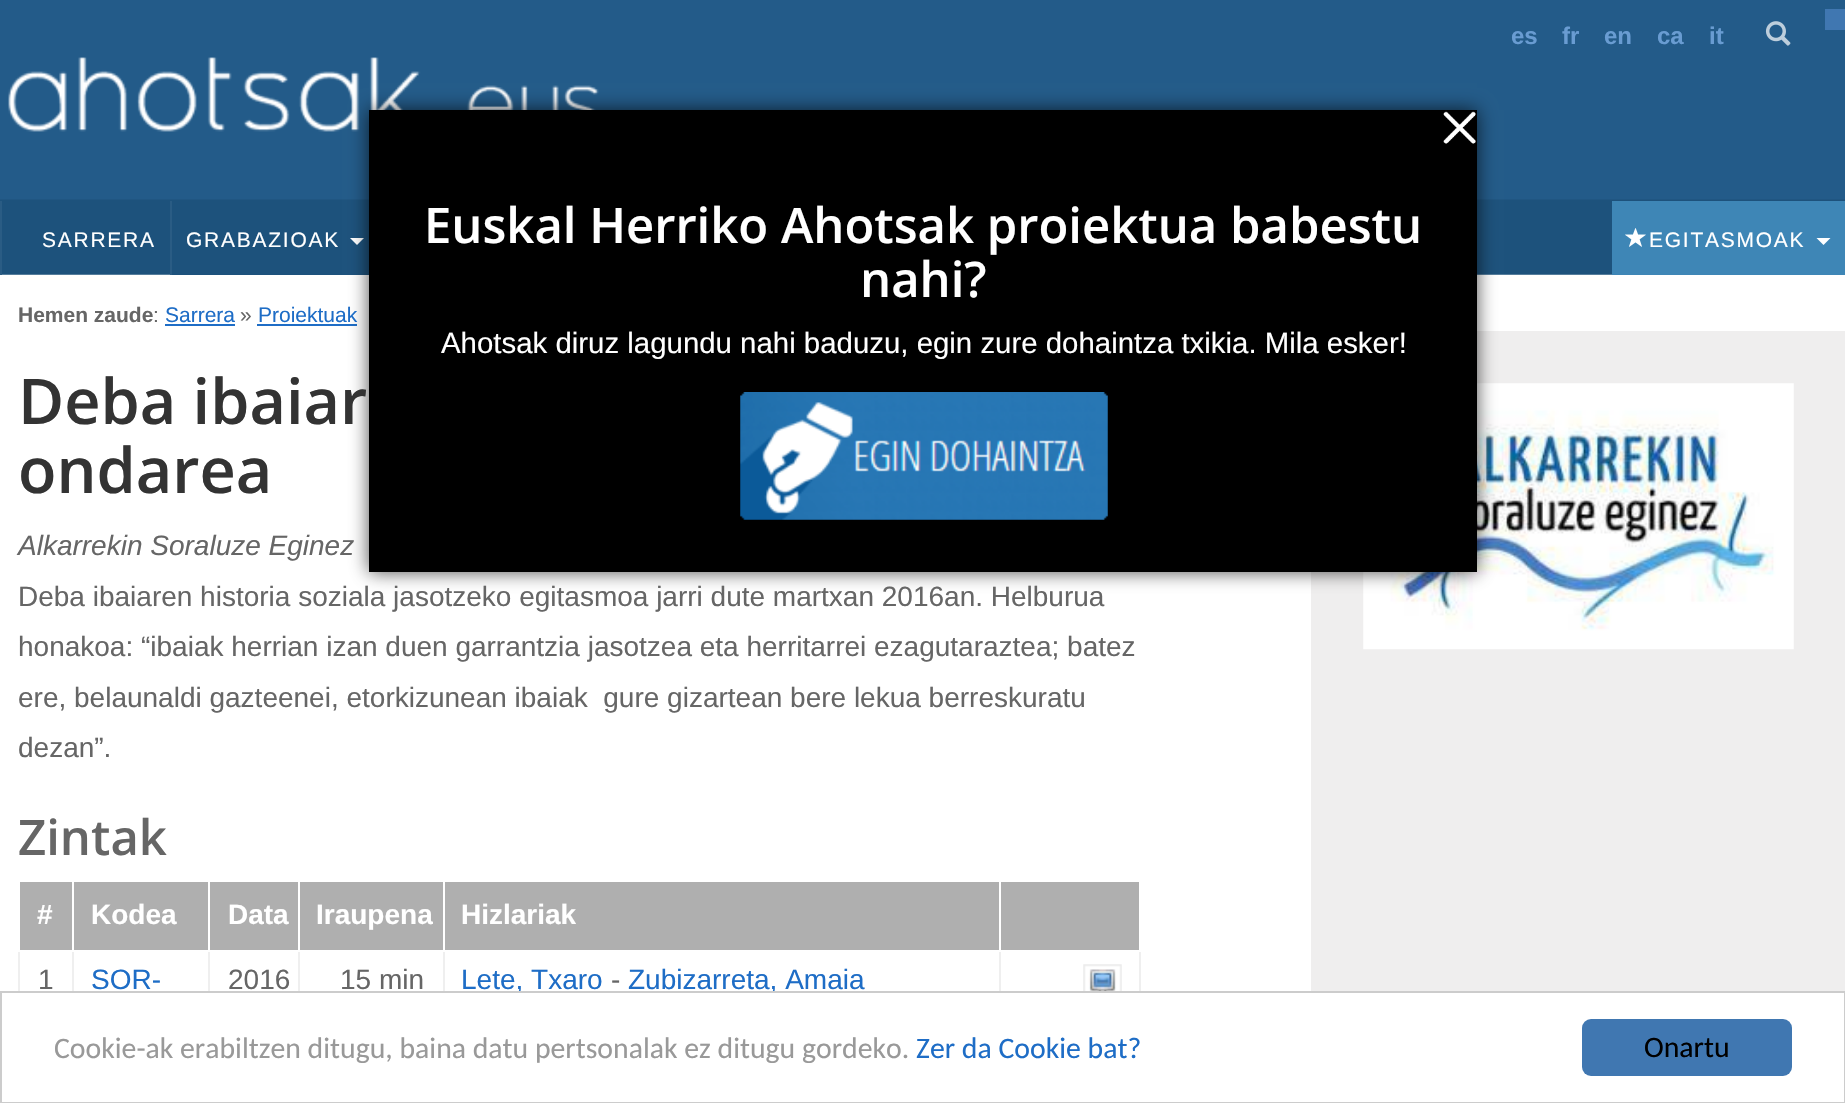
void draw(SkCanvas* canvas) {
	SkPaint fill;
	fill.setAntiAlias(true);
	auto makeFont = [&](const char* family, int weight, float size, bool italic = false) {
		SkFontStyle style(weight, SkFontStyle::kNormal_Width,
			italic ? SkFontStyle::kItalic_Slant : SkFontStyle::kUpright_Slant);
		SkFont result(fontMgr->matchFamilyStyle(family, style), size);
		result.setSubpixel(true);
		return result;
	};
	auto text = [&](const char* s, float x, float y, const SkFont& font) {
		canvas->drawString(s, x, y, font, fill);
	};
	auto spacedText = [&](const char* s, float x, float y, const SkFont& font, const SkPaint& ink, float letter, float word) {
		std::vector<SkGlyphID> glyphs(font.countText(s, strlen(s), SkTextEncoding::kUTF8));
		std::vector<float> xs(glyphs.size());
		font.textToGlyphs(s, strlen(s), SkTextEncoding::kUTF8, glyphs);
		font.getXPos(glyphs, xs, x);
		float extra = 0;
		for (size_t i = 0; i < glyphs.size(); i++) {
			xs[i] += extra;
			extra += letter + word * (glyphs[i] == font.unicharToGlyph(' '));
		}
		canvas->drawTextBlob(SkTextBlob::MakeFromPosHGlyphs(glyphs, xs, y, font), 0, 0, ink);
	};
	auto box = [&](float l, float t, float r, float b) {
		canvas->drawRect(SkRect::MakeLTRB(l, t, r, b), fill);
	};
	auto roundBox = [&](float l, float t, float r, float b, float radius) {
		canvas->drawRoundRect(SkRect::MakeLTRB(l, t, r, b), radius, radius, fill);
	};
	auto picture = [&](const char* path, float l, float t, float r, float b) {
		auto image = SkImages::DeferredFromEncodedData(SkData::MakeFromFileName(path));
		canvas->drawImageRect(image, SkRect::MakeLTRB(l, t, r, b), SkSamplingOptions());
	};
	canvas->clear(0xFFFFFFFF);
	picture("image0.png", 0, 0, 1845, 275);
	picture("image1.png", 1765, 21, 1791, 46);
	fill.setColor(0xFF4077B1);
	box(1825, 9, 1845, 30);
	picture("image2.png", 8, 57, 600, 132);
	fill.setColor(0xFF2A5C84);
	box(0, 201, 2, 275);
	box(170, 201, 172, 275);
	fill.setColor(0xFF1D527C);
	box(172, 274, 369, 275);
	fill.setColor(0xFFFFFFFF);
	canvas->drawPath(SkPathBuilder().moveTo(350, 238).lineTo(364, 238).lineTo(357, 245).close().detach(), fill);
	fill.setColor(0xFF3E86B6);
	box(1612, 201, 1845, 275);
	picture("image3.png", 1625, 228, 1646, 247);
	fill.setColor(0xFFFFFFFF);
	canvas->drawPath(SkPathBuilder().moveTo(1816.5f, 238).lineTo(1830.5f, 238).lineTo(1823.5f, 245).close().detach(), fill);
	fill.setColor(0xFF1E6DC6);
	box(165, 324, 235, 326);
	box(257, 324, 357, 326);
	fill.setColor(0xFFEFEFEF);
	box(1139, 952, 1141, 991);
	box(18, 952, 20, 991);
	fill.setColor(0xFFAFAFAF);
	box(20, 882, 72, 950);
	box(74, 882, 208, 950);
	fill.setColor(0xFFEFEFEF);
	box(72, 950, 74, 991);
	fill.setColor(0xFFFFFFFF);
	box(72, 950, 74, 952);
	fill.setColor(0xFFAFAFAF);
	box(210, 882, 298, 950);
	fill.setColor(0xFFEFEFEF);
	box(208, 950, 210, 991);
	fill.setColor(0xFFFFFFFF);
	box(208, 950, 210, 952);
	fill.setColor(0xFFAFAFAF);
	box(300, 882, 443, 950);
	fill.setColor(0xFFEFEFEF);
	box(298, 950, 300, 991);
	fill.setColor(0xFFFFFFFF);
	box(298, 950, 300, 952);
	fill.setColor(0xFFAFAFAF);
	box(445, 882, 999, 950);
	fill.setColor(0xFFEFEFEF);
	box(443, 950, 445, 991);
	fill.setColor(0xFFFFFFFF);
	box(443, 950, 445, 952);
	fill.setColor(0xFFAFAFAF);
	box(1001, 882, 1139, 950);
	fill.setColor(0xFFEFEFEF);
	box(999, 950, 1001, 991);
	fill.setColor(0xFFFFFFFF);
	box(999, 950, 1001, 952);
	picture("image4.png", 1083, 964, 1122, 991);
	fill.setColor(0xFFEFEEEE);
	box(1311, 331, 1845, 991);
	picture("image5.png", 1363, 383, 1794, 650);
	fill.setColor(0xB3010101);
	fill.setMaskFilter(SkMaskFilter::MakeBlur(kNormal_SkBlurStyle, 9));
	canvas->drawRect(SkRect::MakeLTRB(369, 110, 1477, 572), fill);
	fill.setMaskFilter(nullptr);
	fill.setColor(0xFF000000);
	box(369, 110, 1477, 572);
	picture("image6.png", 1443, 111, 1476, 144);
	picture("image7.png", 740, 392, 1108, 520);
	auto font1 = makeFont("Liberation Sans", 700, 24);
	fill.setColor(0xFF699CD2);
	text("es", 1511, 44, font1);
	text("fr", 1562, 44, font1);
	text("en", 1604, 44, font1);
	text("ca", 1657, 44, font1);
	text("it", 1709, 44, font1);
	auto font2 = makeFont("Liberation Sans", 400, 21);
	fill.setColor(0xFFFFFFFF);
	spacedText("SARRERA", 42, 247, font2, fill, 1.75f, 0);
	spacedText("GRABAZIOAK", 186, 247, font2, fill, 1.75f, 0);
	spacedText("EGITASMOAK", 1649, 247, font2, fill, 1.75f, 0);
	auto font3 = makeFont("Liberation Sans", 700, 21);
	fill.setColor(0xFF666666);
	text("Hemen zaude", 18, 322, font3);
	text(":", 153, 322, font2);
	fill.setColor(0xFF1E6DC6);
	text("Sarrera", 165, 322, font2);
	fill.setColor(0xFF666666);
	text("»", 240, 322, font2);
	fill.setColor(0xFF1E6DC6);
	text("Proiektuak", 258, 322, font2);
	auto font4 = makeFont("Open Sans", 600, 63);
	fill.setColor(0xFF333333);
	text("Deba ibaiar", 18, 424, font4);
	text("ondarea", 18, 493, font4);
	auto font5 = makeFont("Liberation Sans", 400, 28, true);
	fill.setColor(0xFF666666);
	text("Alkarrekin Soraluze Eginez", 18, 555, font5);
	auto font6 = makeFont("Liberation Sans", 400, 28);
	text("Deba ibaiaren historia soziala jasotzeko egitasmoa jarri dute martxan 2016an. Helburua", 18, 606, font6);
	text("honakoa: “ibaiak herrian izan duen garrantzia jasotzea eta herritarrei ezagutaraztea; batez", 18, 656, font6);
	text("ere, belaunaldi gazteenei, etorkizunean ibaiak  gure gizartean bere lekua berreskuratu", 18, 707, font6);
	text("dezan”.", 18, 757, font6);
	auto font7 = makeFont("Open Sans", 600, 49);
	text("Zintak", 18, 855, font7);
	auto font8 = makeFont("Liberation Sans", 700, 28);
	fill.setColor(0xFFFFFFFF);
	text("#", 37, 924, font8);
	text("Kodea", 91, 924, font8);
	text("Data", 228, 924, font8);
	text("Iraupena", 316, 924, font8);
	text("Hizlariak", 461, 924, font8);
	fill.setColor(0xFF666666);
	text("1", 38, 989, font6);
	fill.setColor(0xFF1E6DC6);
	text("SOR-", 91, 989, font6);
	fill.setColor(0xFF666666);
	text("2016", 228, 989, font6);
	text("15 min", 340, 989, font6);
	fill.setColor(0xFF1E6DC6);
	text("Lete, Txaro", 461, 989, font6);
	fill.setColor(0xFF666666);
	text("-", 611, 989, font6);
	fill.setColor(0xFF1E6DC6);
	text("Zubizarreta, Amaia", 628, 989, font6);
	fill.setColor(0xFFFFFFFF);
	text("Euskal Herriko Ahotsak proiektua babestu", 424, 243, font7);
	text("nahi?", 860, 297, font7);
	auto font9 = makeFont("Liberation Sans", 400, 29.4f);
	text("Ahotsak diruz lagundu nahi baduzu, egin zure dohaintza txikia. Mila esker!", 441, 353, font9);
	fill.setStyle(SkPaint::kStroke_Style);
	fill.setStrokeWidth(2);
	fill.setColor(0xFFCCCCCC);
	canvas->drawRect(SkRect::MakeLTRB(1, 992, 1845, 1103), fill);
	auto font10 = makeFont("Carlito", 400, 29.75f);
	fill.setStyle(SkPaint::kFill_Style);
	fill.setColor(0xFF999999);
	text("Cookie-ak erabiltzen ditugu, baina datu pertsonalak ez ditugu gordeko.", 54, 1058, font10);
	fill.setColor(0xFF1E6DC6);
	text("Zer da Cookie bat?", 916, 1058, font10);
	fill.setColor(0xFF4077B1);
	roundBox(1582, 1019, 1792, 1076, 9);
	fill.setColor(0xFF000000);
	text("Onartu", 1644, 1057, font10);
}
